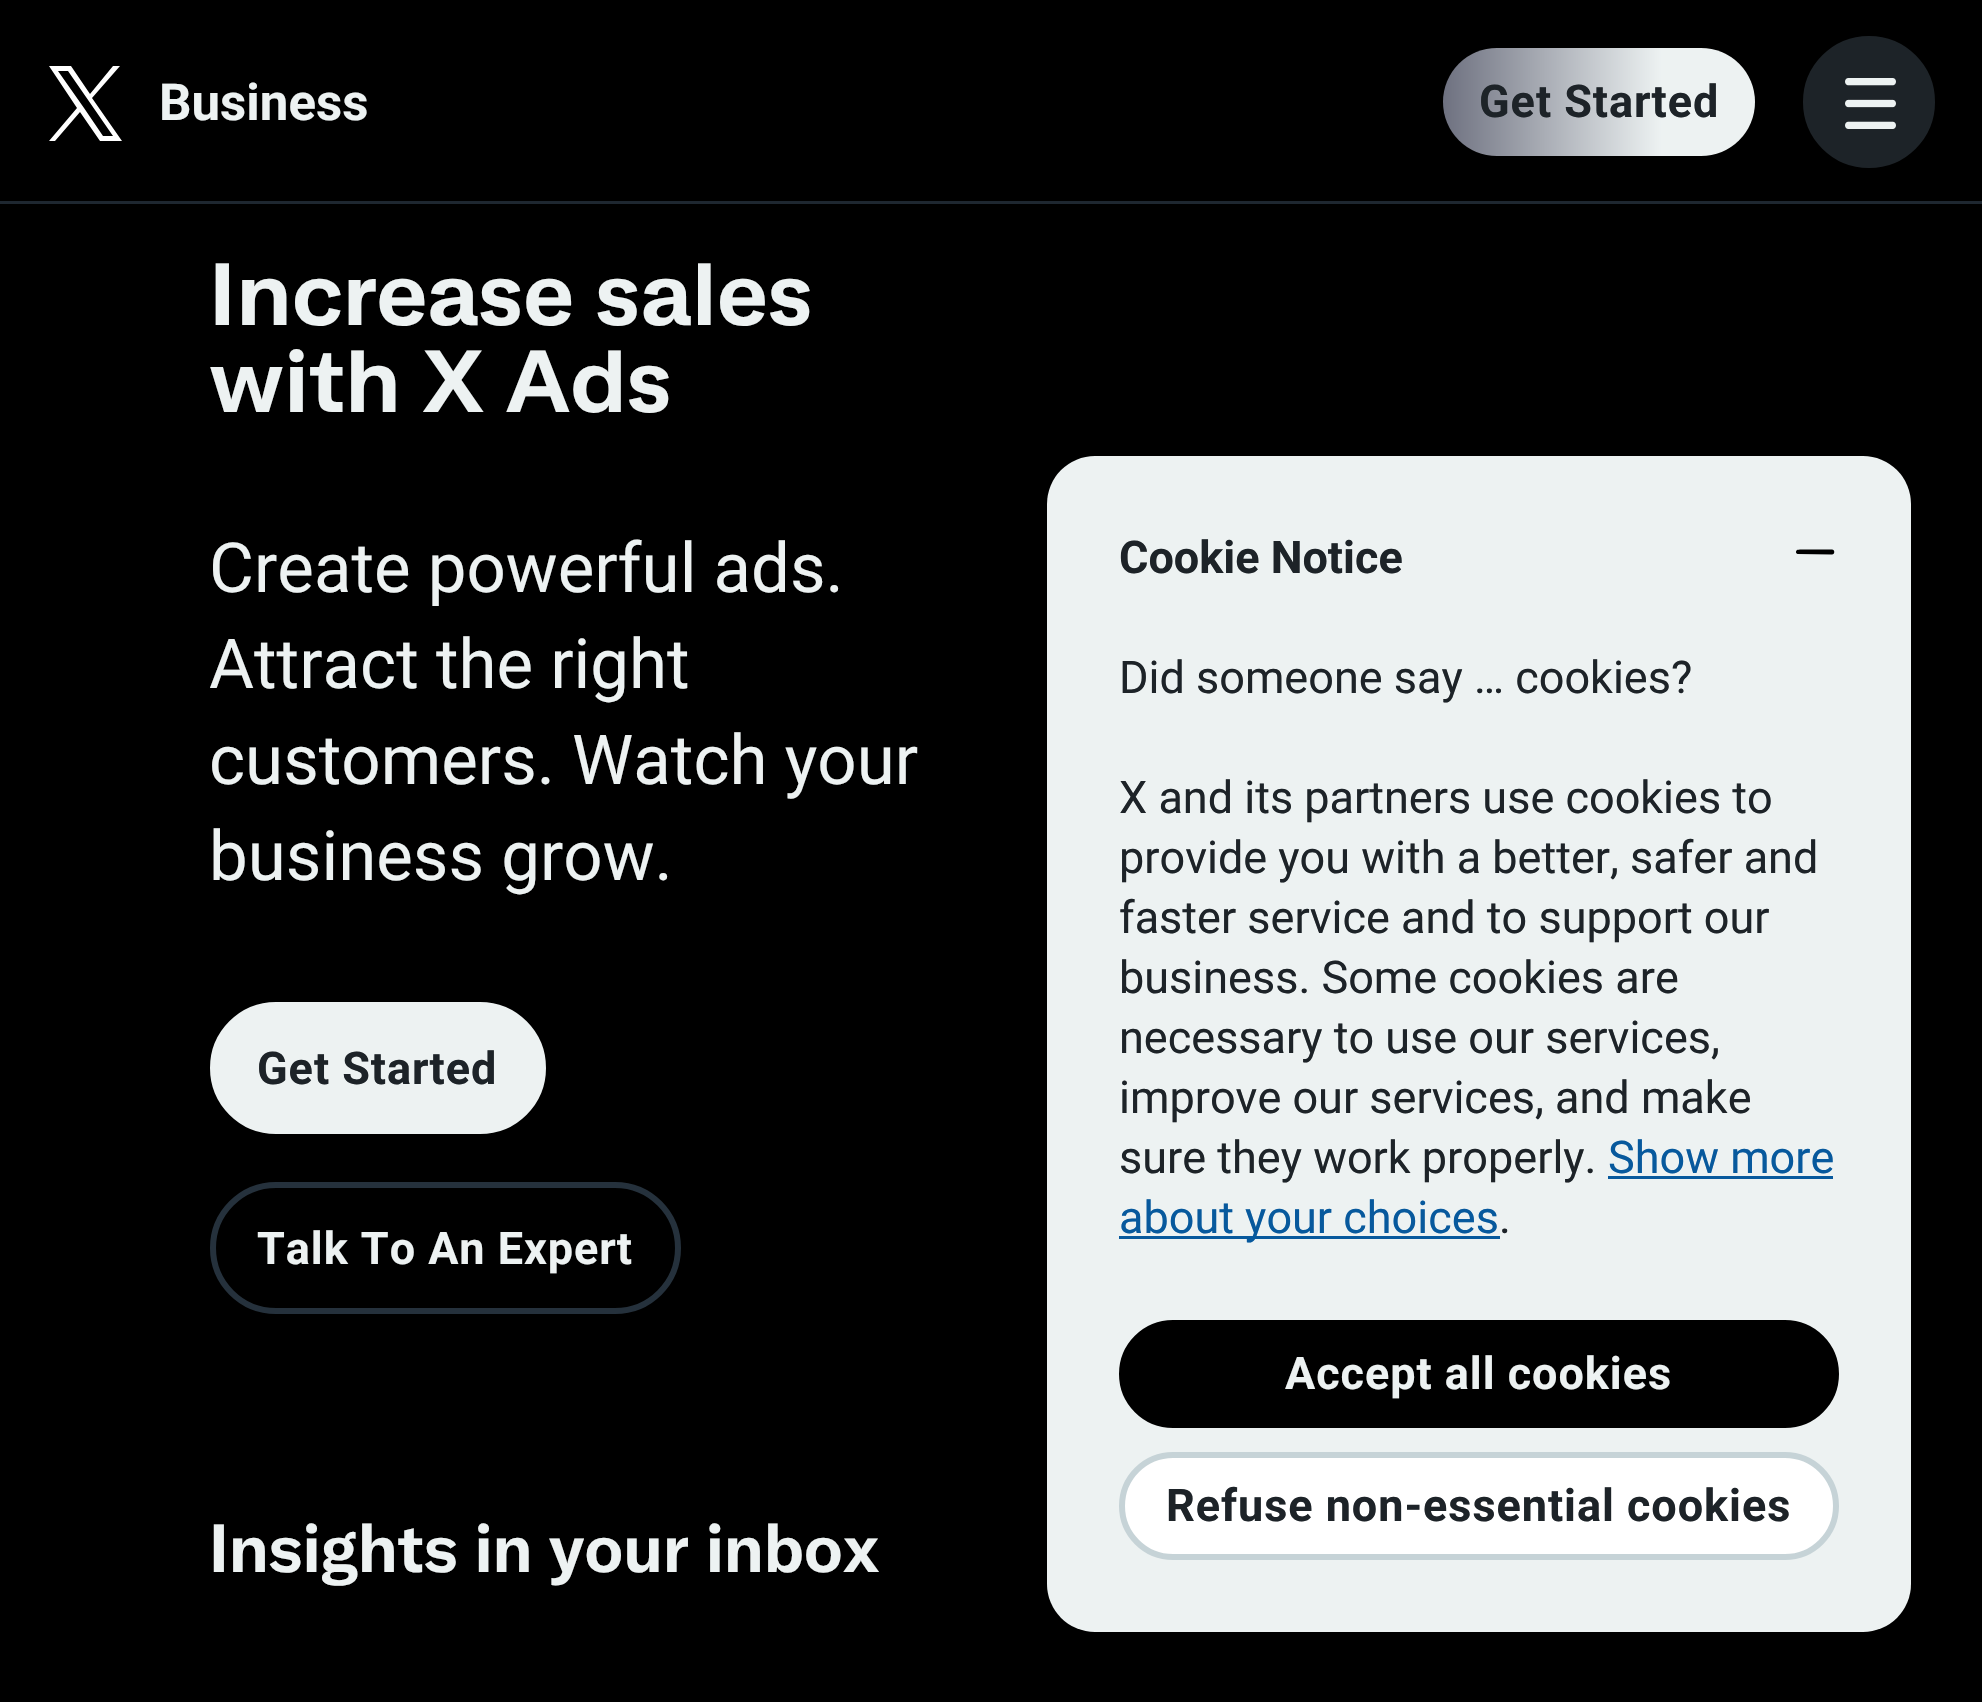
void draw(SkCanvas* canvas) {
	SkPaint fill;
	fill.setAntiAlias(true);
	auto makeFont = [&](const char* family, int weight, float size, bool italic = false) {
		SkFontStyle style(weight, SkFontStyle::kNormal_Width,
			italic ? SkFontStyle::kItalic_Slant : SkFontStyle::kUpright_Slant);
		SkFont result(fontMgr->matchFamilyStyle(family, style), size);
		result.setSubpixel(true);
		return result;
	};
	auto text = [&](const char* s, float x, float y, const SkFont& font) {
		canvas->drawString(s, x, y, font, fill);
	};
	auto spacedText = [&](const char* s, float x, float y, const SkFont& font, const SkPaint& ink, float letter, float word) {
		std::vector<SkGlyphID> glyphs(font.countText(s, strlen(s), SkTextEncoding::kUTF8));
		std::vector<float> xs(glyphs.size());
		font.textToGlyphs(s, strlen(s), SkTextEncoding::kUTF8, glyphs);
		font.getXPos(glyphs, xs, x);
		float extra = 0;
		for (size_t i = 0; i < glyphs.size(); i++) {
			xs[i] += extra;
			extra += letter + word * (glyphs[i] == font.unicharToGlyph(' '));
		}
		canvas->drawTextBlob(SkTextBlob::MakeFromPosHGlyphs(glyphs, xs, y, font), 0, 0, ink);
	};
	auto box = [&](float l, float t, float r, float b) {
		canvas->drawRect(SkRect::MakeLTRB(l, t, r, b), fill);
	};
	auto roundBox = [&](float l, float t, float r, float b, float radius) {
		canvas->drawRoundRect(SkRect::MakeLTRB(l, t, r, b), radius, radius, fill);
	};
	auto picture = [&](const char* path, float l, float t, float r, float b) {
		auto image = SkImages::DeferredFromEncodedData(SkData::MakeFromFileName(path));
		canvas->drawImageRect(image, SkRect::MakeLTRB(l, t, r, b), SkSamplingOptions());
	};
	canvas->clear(0xFF000000);
	fill.setColor(0xFF1E2730);
	box(0, 201, 1982, 204);
	fill.setColor(0xFFFFFFFF);
	canvas->drawPath(SkPathBuilder().moveTo(92, 98).lineTo(120, 66).lineTo(113, 66).lineTo(90, 94).lineTo(71, 66).lineTo(49, 66).lineTo(77, 108).lineTo(49, 141).lineTo(55, 141).lineTo(80, 112).lineTo(100, 141).lineTo(122, 141).close().moveTo(84, 108).lineTo(58, 71).lineTo(68, 71).lineTo(113, 136).lineTo(103, 136).close().detach(), fill);
	{
		const SkColor colors[] = {0xFF6E7180, 0xFFEDF2F2};
		const float stops[] = {0, 0.7f};
		const SkPoint ends[] = {{1443, 102}, {1755, 102}};
		fill.setShader(SkGradientShader::MakeLinear(ends, colors, stops, 2, SkTileMode::kClamp));
		fill.setAlpha(255);
	}
	roundBox(1443, 48, 1755, 156, 54);
	fill.setShader(nullptr);
	fill.setColor(0xFF1D2328);
	canvas->drawCircle(1869, 102, 63, fill);
	fill.setStyle(SkPaint::kStroke_Style);
	fill.setStrokeWidth(6);
	canvas->drawCircle(1869, 102, 63, fill);
	picture("image0.png", 1845, 78, 1896, 129);
	fill.setStyle(SkPaint::kFill_Style);
	fill.setColor(0xFFEDF2F2);
	canvas->drawRoundRect(SkRect::MakeLTRB(213, 1005, 543, 1131), 63, 63, fill);
	fill.setStyle(SkPaint::kStroke_Style);
	canvas->drawRoundRect(SkRect::MakeLTRB(213, 1005, 543, 1131), 63, 63, fill);
	fill.setColor(0xFF25313C);
	canvas->drawRoundRect(SkRect::MakeLTRB(213, 1185, 678, 1311), 63, 63, fill);
	fill.setStyle(SkPaint::kFill_Style);
	fill.setColor(0xFFEDF2F2);
	roundBox(1047, 456, 1911, 1632, 48);
	fill.setColor(0xFF000000);
	canvas->drawPath(SkPathBuilder().moveTo(1832, 554.5f).lineTo(1797.5f, 554).cubicTo(1795.5f, 553.5f, 1795.5f, 551, 1797, 550).cubicTo(1798.5f, 549, 1804, 549.5f, 1804, 549.5f).lineTo(1832, 549.5f).cubicTo(1835, 549.5f, 1835, 554.5f, 1832, 554.5f).close().detach(), fill);
	fill.setColor(0xFF07599D);
	box(1608, 1176, 1833, 1179);
	box(1119, 1236, 1500, 1239);
	fill.setColor(0xFF000000);
	canvas->drawRoundRect(SkRect::MakeLTRB(1122, 1323, 1836, 1425), 51, 51, fill);
	fill.setStyle(SkPaint::kStroke_Style);
	canvas->drawRoundRect(SkRect::MakeLTRB(1122, 1323, 1836, 1425), 51, 51, fill);
	fill.setStyle(SkPaint::kFill_Style);
	fill.setColor(0xFFFFFFFF);
	canvas->drawRoundRect(SkRect::MakeLTRB(1122, 1455, 1836, 1557), 51, 51, fill);
	fill.setStyle(SkPaint::kStroke_Style);
	fill.setColor(0xFFC6D3D7);
	canvas->drawRoundRect(SkRect::MakeLTRB(1122, 1455, 1836, 1557), 51, 51, fill);
	auto font1 = makeFont("Roboto", 700, 51);
	fill.setStyle(SkPaint::kFill_Style);
	fill.setColor(0xFFEDF2F2);
	text("Business", 159, 120, font1);
	auto font2 = makeFont("Roboto", 700, 45);
	fill.setColor(0xFF1D2328);
	spacedText("Get Started", 1479, 117, font2, fill, 0.95f, 0);
	auto font3 = makeFont("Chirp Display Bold", 700, 86.75f);
	fill.setColor(0xFFEDF2F2);
	text("Increase sales", 209, 325, font3);
	text("with X Ads", 209, 412, font3);
	auto font4 = makeFont("Roboto", 400, 69);
	text("Create powerful ads.", 209, 592, font4);
	text("Attract the right", 209, 688, font4);
	text("customers. Watch your", 209, 784, font4);
	text("business grow.", 209, 880, font4);
	fill.setColor(0xFF1D2328);
	spacedText("Get Started", 257, 1084, font2, fill, 0.95f, 0);
	fill.setColor(0xFFEDF2F2);
	spacedText("Talk To An Expert", 257, 1264, font2, fill, 0.95f, 0);
	auto font5 = makeFont("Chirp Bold", 700, 67);
	text("Insights in your inbox", 209, 1572, font5);
	fill.setColor(0xFF1D2328);
	text("Cookie Notice", 1119, 573, font2);
	auto font6 = makeFont("Roboto", 400, 45);
	text("Did someone say … cookies?", 1119, 693, font6);
	text("X and its partners use cookies to", 1119, 813, font6);
	text("provide you with a better, safer and", 1119, 873, font6);
	text("faster service and to support our", 1119, 933, font6);
	text("business. Some cookies are", 1119, 993, font6);
	text("necessary to use our services,", 1119, 1053, font6);
	text("improve our services, and make", 1119, 1113, font6);
	text("sure they work properly.", 1119, 1173, font6);
	fill.setColor(0xFF07599D);
	text("Show more", 1608, 1173, font6);
	text("about your choices", 1119, 1233, font6);
	fill.setColor(0xFF1D2328);
	text(".", 1499, 1233, font6);
	fill.setColor(0xFFEDF2F2);
	spacedText("Accept all cookies", 1285, 1389, font2, fill, 0.95f, 0);
	fill.setColor(0xFF1D2328);
	spacedText("Refuse non-essential cookies", 1166, 1521, font2, fill, 0.95f, 0);
}
